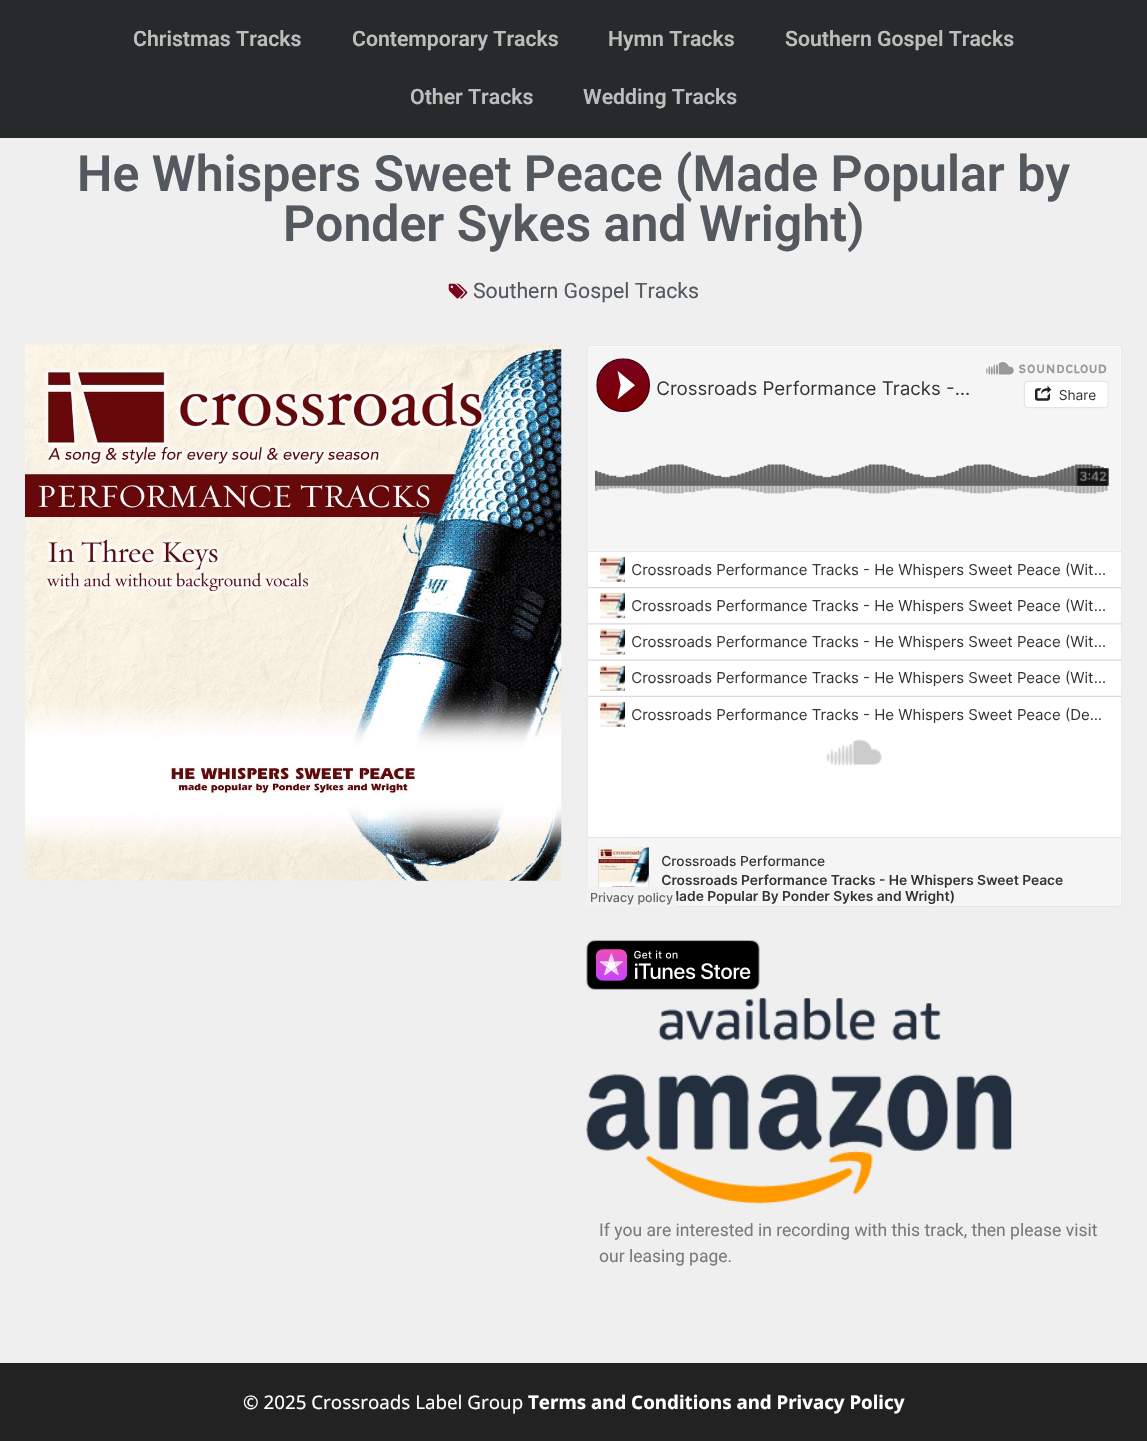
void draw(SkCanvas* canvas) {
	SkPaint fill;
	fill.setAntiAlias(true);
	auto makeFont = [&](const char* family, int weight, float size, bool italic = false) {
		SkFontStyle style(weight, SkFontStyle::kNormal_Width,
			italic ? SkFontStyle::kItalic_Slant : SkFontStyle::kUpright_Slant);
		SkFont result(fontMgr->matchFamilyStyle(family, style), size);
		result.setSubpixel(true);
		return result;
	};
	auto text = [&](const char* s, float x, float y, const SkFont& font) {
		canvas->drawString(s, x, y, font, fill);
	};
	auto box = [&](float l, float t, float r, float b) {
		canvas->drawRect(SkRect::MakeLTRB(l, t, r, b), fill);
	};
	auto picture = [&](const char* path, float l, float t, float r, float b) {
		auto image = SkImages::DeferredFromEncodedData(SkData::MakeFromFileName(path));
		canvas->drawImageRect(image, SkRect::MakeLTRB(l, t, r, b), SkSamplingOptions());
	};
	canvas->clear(0xFFEFEFEF);
	fill.setColor(0xFF262A2B);
	box(0, 0, 1147, 138);
	picture("image0.png", 448, 283, 468, 299);
	picture("image1.png", 25, 344, 562, 881);
	picture("image2.png", 586, 345, 1122, 907);
	picture("image3.png", 586, 940, 760, 990);
	picture("image4.png", 586, 998, 1012, 1204);
	fill.setColor(0xFF222222);
	box(0, 1363, 1147, 1441);
	auto font1 = makeFont("Roboto", 600, 21.25f);
	fill.setColor(0xFFBCBDBD);
	text("Christmas Tracks", 133, 46, font1);
	text("Contemporary Tracks", 352, 46, font1);
	text("Hymn Tracks", 608, 46, font1);
	text("Southern Gospel Tracks", 785, 46, font1);
	text("Other Tracks", 410, 104, font1);
	text("Wedding Tracks", 583, 104, font1);
	auto font2 = makeFont("Roboto", 600, 50);
	fill.setColor(0xFF54595F);
	text("He Whispers Sweet Peace (Made Popular by", 77, 191, font2);
	text("Ponder Sykes and Wright)", 283, 241, font2);
	auto font3 = makeFont("Roboto", 400, 21.25f);
	text("Southern Gospel Tracks", 473, 298, font3);
	auto font4 = makeFont("Roboto", 400, 17.5f);
	fill.setColor(0xFF7A7A7A);
	text("If you are interested in recording with this track, then please visit", 599, 1236, font4);
	text("our leasing page.", 599, 1262, font4);
	auto font5 = makeFont("Noto Sans", 400, 18.75f);
	fill.setColor(0xFFFFFFFF);
	text("© 2025 Crossroads Label Group", 243, 1409, font5);
	auto font6 = makeFont("Noto Sans", 700, 18.75f);
	text("Terms and Conditions and Privacy Policy", 528, 1409, font6);
}
